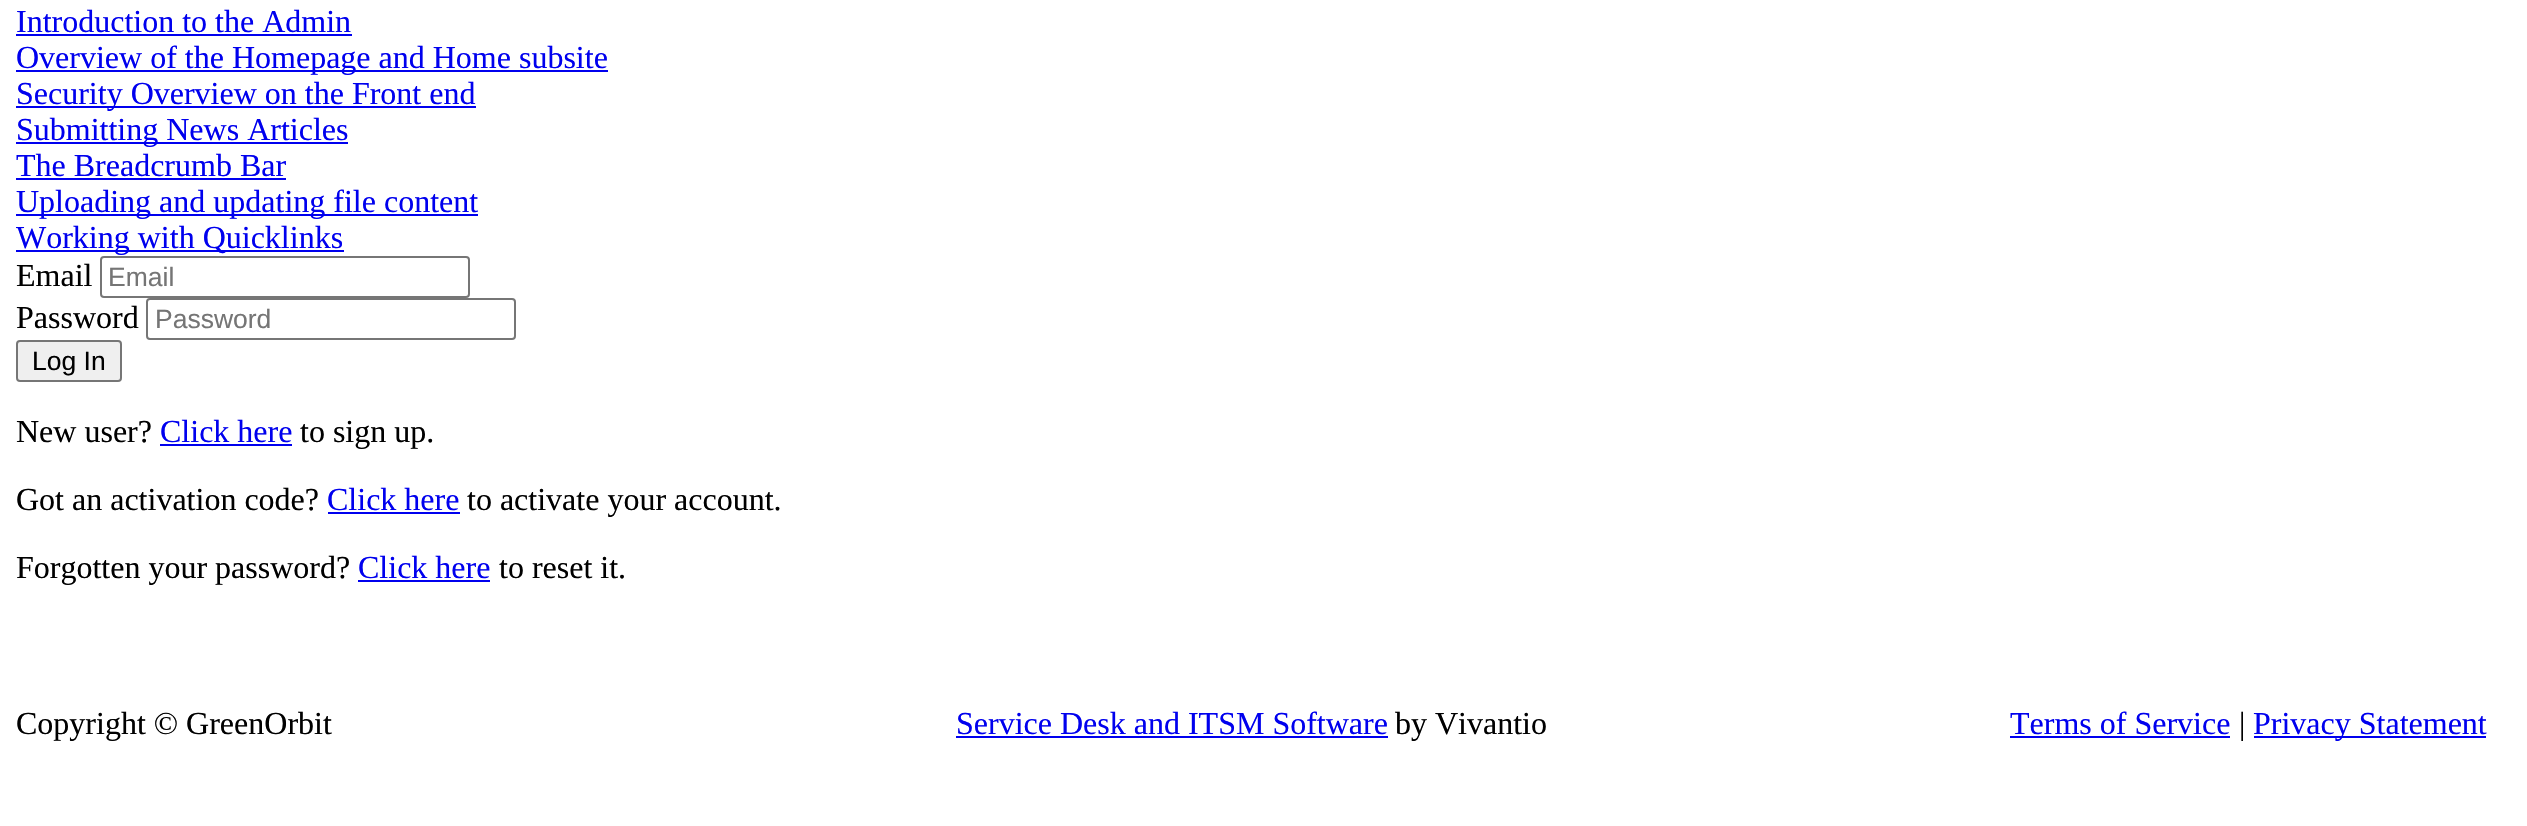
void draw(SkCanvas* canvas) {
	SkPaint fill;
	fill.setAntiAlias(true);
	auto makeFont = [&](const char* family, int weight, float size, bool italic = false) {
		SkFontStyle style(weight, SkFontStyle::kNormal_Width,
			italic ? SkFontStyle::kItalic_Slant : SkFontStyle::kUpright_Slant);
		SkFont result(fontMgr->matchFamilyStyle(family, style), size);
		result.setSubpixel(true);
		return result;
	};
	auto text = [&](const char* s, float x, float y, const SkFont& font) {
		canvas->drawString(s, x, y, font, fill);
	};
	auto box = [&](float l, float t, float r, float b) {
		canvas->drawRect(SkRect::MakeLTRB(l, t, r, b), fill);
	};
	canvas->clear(0xFFFFFFFF);
	fill.setColor(0xFF0000EE);
	box(16, 34, 352, 36);
	box(16, 70, 608, 72);
	box(16, 106, 476, 108);
	box(16, 142, 348, 144);
	box(16, 178, 286, 180);
	box(16, 214, 478, 216);
	box(16, 250, 344, 252);
	fill.setStyle(SkPaint::kStroke_Style);
	fill.setStrokeWidth(2);
	fill.setColor(0xFF767676);
	canvas->drawRoundRect(SkRect::MakeLTRB(101, 257, 469, 297), 3, 3, fill);
	canvas->drawRoundRect(SkRect::MakeLTRB(147, 299, 515, 339), 3, 3, fill);
	fill.setStyle(SkPaint::kFill_Style);
	fill.setColor(0xFFEFEFEF);
	canvas->drawRoundRect(SkRect::MakeLTRB(17, 341, 121, 381), 3, 3, fill);
	fill.setStyle(SkPaint::kStroke_Style);
	fill.setColor(0xFF767676);
	canvas->drawRoundRect(SkRect::MakeLTRB(17, 341, 121, 381), 3, 3, fill);
	fill.setStyle(SkPaint::kFill_Style);
	fill.setColor(0xFF0000EE);
	box(160, 444, 292, 446);
	box(328, 512, 460, 514);
	box(358, 580, 490, 582);
	box(956, 736, 1388, 738);
	box(2010, 736, 2230, 738);
	box(2254, 736, 2486, 738);
	auto font1 = makeFont("Liberation Serif", 400, 32);
	text("Introduction to the Admin", 16, 32, font1);
	text("Overview of the Homepage and Home subsite", 16, 68, font1);
	text("Security Overview on the Front end", 16, 104, font1);
	text("Submitting News Articles", 16, 140, font1);
	text("The Breadcrumb Bar", 16, 176, font1);
	text("Uploading and updating file content", 16, 212, font1);
	text("Working with Quicklinks", 16, 248, font1);
	fill.setColor(0xFF000000);
	text("Email", 16, 286, font1);
	auto font2 = makeFont("Liberation Sans", 400, 26.5f);
	fill.setColor(0xFF757575);
	text("Email", 108, 286, font2);
	fill.setColor(0xFF000000);
	text("Password", 16, 328, font1);
	fill.setColor(0xFF757575);
	text("Password", 155, 328, font2);
	fill.setColor(0xFF000000);
	text("Log In", 32, 370, font2);
	text("New user?", 16, 442, font1);
	fill.setColor(0xFF0000EE);
	text("Click here", 160, 442, font1);
	fill.setColor(0xFF000000);
	text("to sign up.", 300, 442, font1);
	text("Got an activation code?", 16, 510, font1);
	fill.setColor(0xFF0000EE);
	text("Click here", 327, 510, font1);
	fill.setColor(0xFF000000);
	text("to activate your account.", 467, 510, font1);
	text("Forgotten your password?", 16, 578, font1);
	fill.setColor(0xFF0000EE);
	text("Click here", 358, 578, font1);
	fill.setColor(0xFF000000);
	text("to reset it.", 499, 578, font1);
	text("Copyright © GreenOrbit", 16, 734, font1);
	fill.setColor(0xFF0000EE);
	text("Service Desk and ITSM Software", 956, 734, font1);
	fill.setColor(0xFF000000);
	text("by Vivantio", 1395, 734, font1);
	fill.setColor(0xFF0000EE);
	text("Terms of Service", 2010, 734, font1);
	fill.setColor(0xFF000000);
	text("|", 2239, 734, font1);
	fill.setColor(0xFF0000EE);
	text("Privacy Statement", 2253, 734, font1);
}
